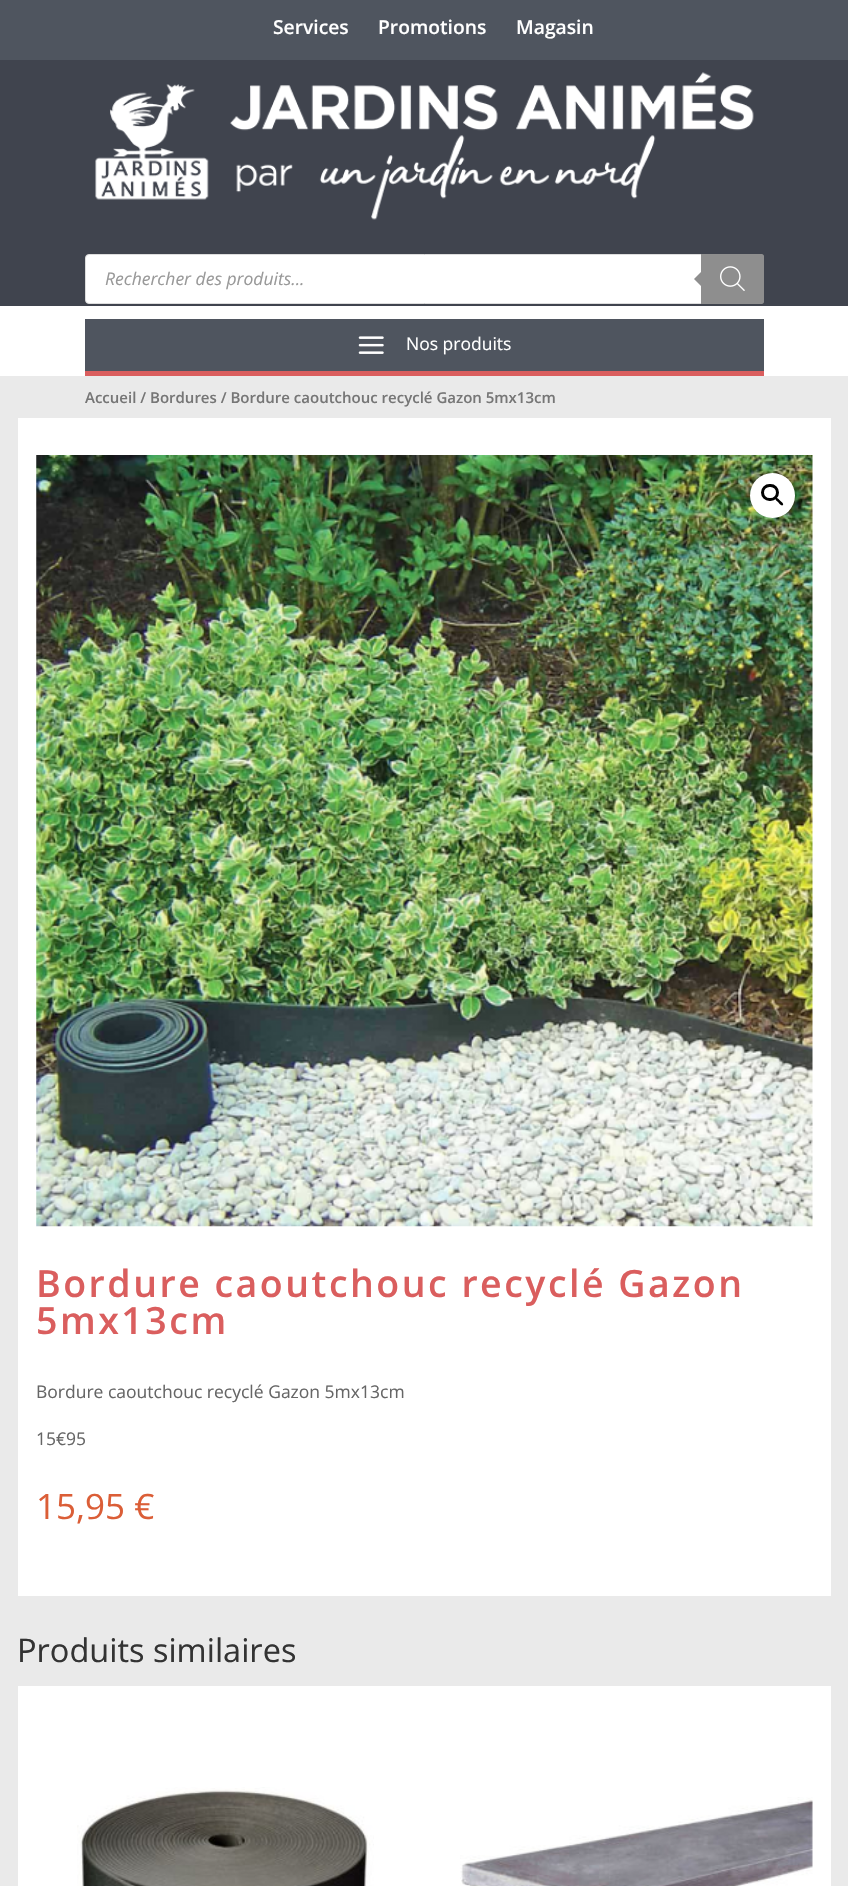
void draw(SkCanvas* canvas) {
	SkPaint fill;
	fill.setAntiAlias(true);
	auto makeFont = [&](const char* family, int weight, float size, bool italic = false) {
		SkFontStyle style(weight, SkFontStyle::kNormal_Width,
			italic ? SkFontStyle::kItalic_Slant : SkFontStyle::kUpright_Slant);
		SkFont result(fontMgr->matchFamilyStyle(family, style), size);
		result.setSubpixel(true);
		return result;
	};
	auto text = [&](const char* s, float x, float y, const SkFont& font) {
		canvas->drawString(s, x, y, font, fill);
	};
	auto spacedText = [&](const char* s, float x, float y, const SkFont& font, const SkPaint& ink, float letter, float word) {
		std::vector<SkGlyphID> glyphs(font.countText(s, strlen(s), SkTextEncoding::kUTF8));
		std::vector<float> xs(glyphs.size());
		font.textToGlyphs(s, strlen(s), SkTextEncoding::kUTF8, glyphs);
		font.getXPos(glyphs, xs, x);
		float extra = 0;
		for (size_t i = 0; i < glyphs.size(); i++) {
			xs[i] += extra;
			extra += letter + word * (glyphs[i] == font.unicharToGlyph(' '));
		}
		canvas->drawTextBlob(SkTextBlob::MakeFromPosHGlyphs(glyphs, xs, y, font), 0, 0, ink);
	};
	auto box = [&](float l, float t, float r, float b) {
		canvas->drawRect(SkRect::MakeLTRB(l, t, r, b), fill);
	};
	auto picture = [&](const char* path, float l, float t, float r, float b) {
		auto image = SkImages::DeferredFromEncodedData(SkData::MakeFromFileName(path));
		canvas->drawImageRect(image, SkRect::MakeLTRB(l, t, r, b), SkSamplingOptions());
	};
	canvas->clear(0xFFFFFFFF);
	fill.setColor(0xFF4F555F);
	box(0, 0, 848, 60);
	fill.setColor(0xFF40444E);
	box(0, 60, 848, 306);
	picture("image0.png", 95, 72, 754, 220);
	fill.setColor(0xFFFFFFFF);
	canvas->drawRoundRect(SkRect::MakeLTRB(85.5f, 254.5f, 763.5f, 303.5f), 3.5f, 3.5f, fill);
	fill.setStyle(SkPaint::kStroke_Style);
	fill.setStrokeWidth(1);
	fill.setColor(0xFFDDDDDD);
	canvas->drawRoundRect(SkRect::MakeLTRB(85.5f, 254.5f, 763.5f, 303.5f), 3.5f, 3.5f, fill);
	fill.setStyle(SkPaint::kFill_Style);
	fill.setColor(0xFF8E8E8E);
	canvas->drawPath(SkPathBuilder().moveTo(701, 254).lineTo(761.5f, 254).cubicTo(763, 254, 764, 255, 764, 256.5f).lineTo(764, 301.5f).cubicTo(764, 303, 763, 304, 761.5f, 304).lineTo(701, 304).close().detach(), fill);
	canvas->drawPath(SkPathBuilder().moveTo(704, 269).lineTo(704, 289).lineTo(694, 279).close().detach(), fill);
	picture("image1.png", 720, 266, 745, 291);
	fill.setColor(0xFFDA5E5E);
	box(85, 371, 764, 376);
	fill.setColor(0xFF4F555F);
	box(85, 319, 764, 371);
	picture("image2.png", 358, 336, 384, 354);
	fill.setColor(0xFFEAEAEA);
	box(0, 376, 848, 1886);
	fill.setColor(0xFFFFFFFF);
	box(18, 418, 831, 1596);
	picture("image3.png", 36, 455, 813, 1227);
	canvas->drawCircle(772.5f, 495.5f, 22.5f, fill);
	fill.setStyle(SkPaint::kStroke_Style);
	fill.setStrokeWidth(3);
	fill.setColor(0xFF000000);
	canvas->drawRoundRect(SkRect::MakeLTRB(762.5f, 485.5f, 777.5f, 499.5f), 7, 7, fill);
	fill.setStyle(SkPaint::kFill_Style);
	canvas->drawPath(SkPathBuilder().moveTo(775.5f, 498).cubicTo(777, 496.5f, 779.5f, 500, 780, 500.5f).cubicTo(781, 501.5f, 784, 503.5f, 783, 505).cubicTo(781.5f, 506.5f, 779, 503.5f, 778.5f, 502.5f).cubicTo(777.5f, 501.5f, 774.5f, 499.5f, 775.5f, 498).close().detach(), fill);
	fill.setColor(0xFFFFFFFF);
	box(18, 1686, 831, 1886);
	picture("image4.png", 77, 1787, 374, 1886);
	picture("image5.png", 460, 1797, 813, 1886);
	auto font1 = makeFont("Open Sans", 600, 19.25f);
	text("Services", 273, 34, font1);
	text("Promotions", 378, 34, font1);
	text("Magasin", 516, 34, font1);
	auto font2 = makeFont("Open Sans", 400, 17.5f, true);
	fill.setColor(0xFF999999);
	text("Rechercher des produits...", 105, 285, font2);
	auto font3 = makeFont("Open Sans", 400, 17.5f);
	fill.setColor(0xFFFFFFFF);
	text("Nos produits", 406, 350, font3);
	auto font4 = makeFont("Open Sans", 600, 15);
	fill.setColor(0xFF767676);
	text("Accueil / Bordures / Bordure caoutchouc recyclé Gazon 5mx13cm", 85, 403, font4);
	auto font5 = makeFont("Open Sans", 600, 37.5f);
	fill.setColor(0xFFDA5E5E);
	spacedText("Bordure caoutchouc recyclé Gazon", 36, 1297, font5, fill, 2.5f, 0);
	spacedText("5mx13cm", 36, 1334, font5, fill, 2.5f, 0);
	fill.setColor(0xFF666666);
	text("Bordure caoutchouc recyclé Gazon 5mx13cm", 36, 1398, font3);
	text("15€95", 36, 1445, font3);
	auto font6 = makeFont("Open Sans", 400, 35);
	fill.setColor(0xFFDB5E37);
	text("15,95 €", 36, 1519, font6);
	auto font7 = makeFont("Open Sans", 400, 32.5f);
	fill.setColor(0xFF333333);
	text("Produits similaires", 17, 1662, font7);
}
